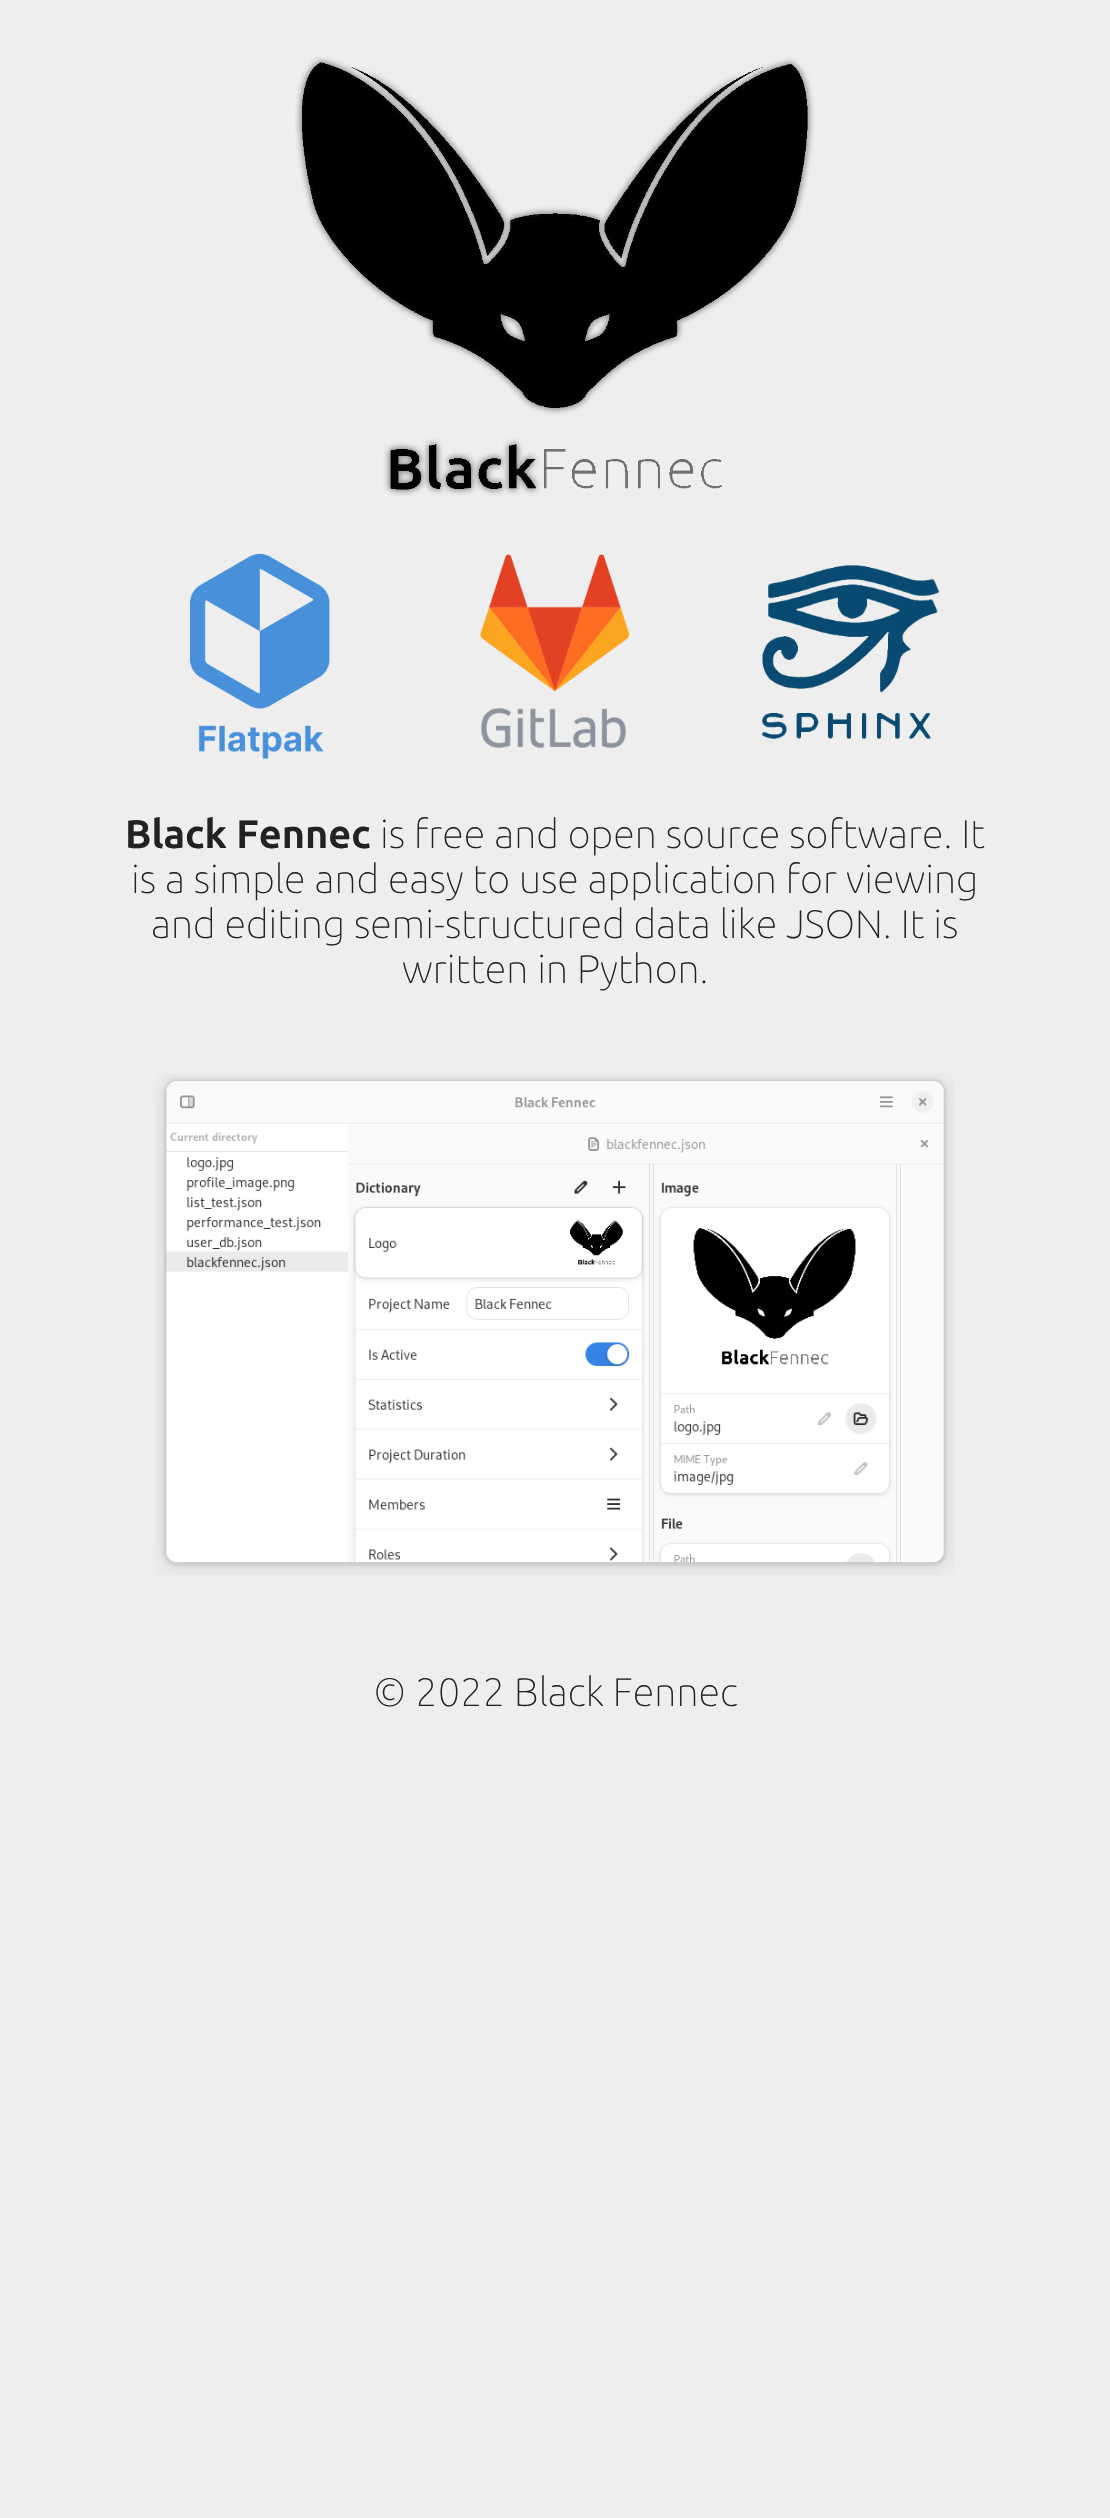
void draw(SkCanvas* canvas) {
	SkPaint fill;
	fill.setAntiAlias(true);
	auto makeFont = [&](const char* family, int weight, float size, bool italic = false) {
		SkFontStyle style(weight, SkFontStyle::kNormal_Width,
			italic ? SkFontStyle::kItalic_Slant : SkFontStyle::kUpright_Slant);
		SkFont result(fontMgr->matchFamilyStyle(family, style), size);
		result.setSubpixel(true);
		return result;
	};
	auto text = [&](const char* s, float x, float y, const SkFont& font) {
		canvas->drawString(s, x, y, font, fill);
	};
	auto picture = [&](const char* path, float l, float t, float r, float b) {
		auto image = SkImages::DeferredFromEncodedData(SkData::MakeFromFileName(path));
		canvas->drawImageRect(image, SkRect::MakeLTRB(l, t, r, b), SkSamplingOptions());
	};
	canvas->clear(0xFFEEEEEE);
	picture("image0.png", 295, 57, 815, 497);
	picture("image1.png", 190, 553, 330, 759);
	picture("image2.png", 480, 554, 630, 748);
	picture("image3.png", 761, 565, 940, 739);
	picture("image4.png", 155, 1073, 955, 1575);
	auto font1 = makeFont("Ubuntu", 700, 39.8f);
	fill.setColor(0xFF222222);
	text("Black Fennec", 125, 848, font1);
	auto font2 = makeFont("Ubuntu", 100, 39.8f);
	text("is free and open source software. It", 380, 848, font2);
	text("is a simple and easy to use application for viewing", 131, 893, font2);
	text("and editing semi-structured data like JSON. It is", 151, 938, font2);
	text("written in Python.", 402, 983, font2);
	text("© 2022 Black Fennec", 373, 1706, font2);
}
